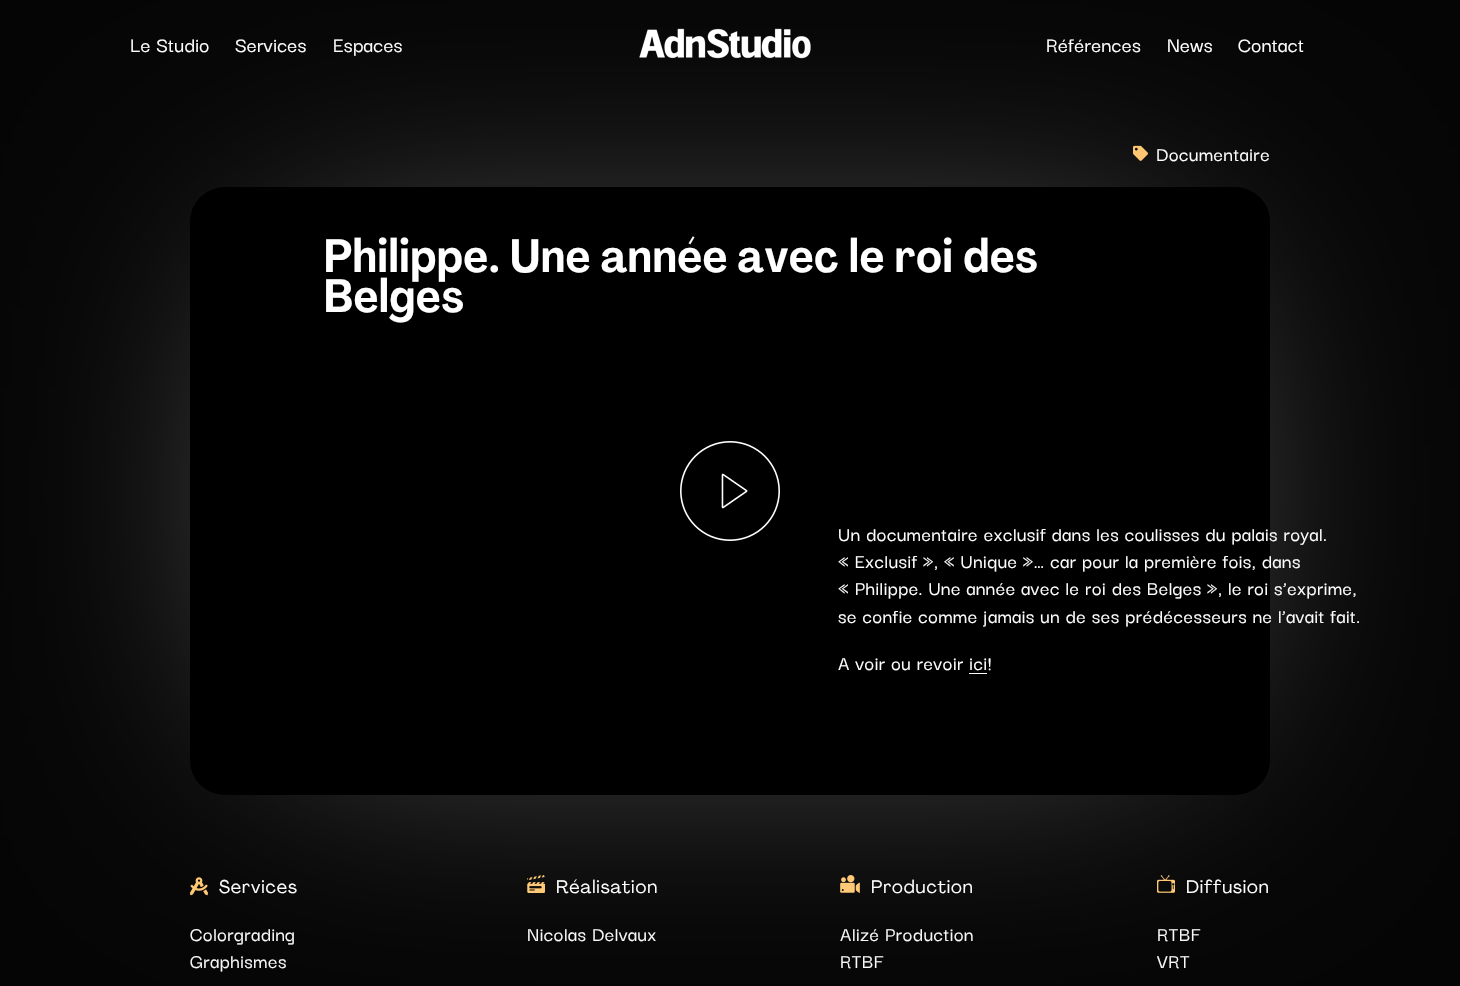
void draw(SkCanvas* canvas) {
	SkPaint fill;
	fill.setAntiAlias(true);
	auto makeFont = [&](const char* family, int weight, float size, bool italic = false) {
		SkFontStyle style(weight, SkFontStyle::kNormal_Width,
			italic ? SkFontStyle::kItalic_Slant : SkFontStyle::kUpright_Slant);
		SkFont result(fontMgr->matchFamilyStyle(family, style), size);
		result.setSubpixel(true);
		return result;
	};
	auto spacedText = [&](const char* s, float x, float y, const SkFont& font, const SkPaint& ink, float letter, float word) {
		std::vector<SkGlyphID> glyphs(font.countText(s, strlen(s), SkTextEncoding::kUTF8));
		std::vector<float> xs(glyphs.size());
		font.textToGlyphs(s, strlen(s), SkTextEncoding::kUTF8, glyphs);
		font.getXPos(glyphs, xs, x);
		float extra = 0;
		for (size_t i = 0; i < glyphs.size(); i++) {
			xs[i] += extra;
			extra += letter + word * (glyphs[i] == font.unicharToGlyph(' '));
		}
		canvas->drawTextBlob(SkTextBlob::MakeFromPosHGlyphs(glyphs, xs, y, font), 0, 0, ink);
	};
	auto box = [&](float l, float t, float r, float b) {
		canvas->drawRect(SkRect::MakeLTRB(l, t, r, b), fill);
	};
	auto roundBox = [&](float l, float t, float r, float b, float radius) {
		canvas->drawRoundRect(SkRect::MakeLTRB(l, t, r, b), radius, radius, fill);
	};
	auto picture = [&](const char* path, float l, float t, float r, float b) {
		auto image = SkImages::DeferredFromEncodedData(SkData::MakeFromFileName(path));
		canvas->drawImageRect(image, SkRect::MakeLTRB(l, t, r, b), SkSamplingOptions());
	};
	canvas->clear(0xFF050505);
	picture("image3.png", 190, 877, 208, 896);
	picture("image4.png", 527, 875, 545, 893);
	picture("image5.png", 840, 875, 860, 893);
	picture("image6.png", 1157, 875, 1175, 893);
	fill.setColor(0x66FFFFFF);
	fill.setMaskFilter(SkMaskFilter::MakeBlur(kNormal_SkBlurStyle, 175));
	canvas->drawRect(SkRect::MakeLTRB(270, 267, 1190, 715), fill);
	fill.setMaskFilter(nullptr);
	picture("image0.png", 639, 28, 811, 59);
	fill.setColor(0xFF000000);
	roundBox(190, 187, 1270, 795, 35);
	fill.setColor(0xA6000000);
	roundBox(190, 187, 1270, 795, 35);
	picture("image1.png", 680, 441, 780, 541);
	picture("image2.png", 1133, 145, 1148, 161);
	fill.setColor(0xFFFFFFFF);
	box(969, 673, 987, 674);
	auto font1 = makeFont("Darker Grotesque", 500, 22);
	spacedText("Le Studio", 130, 52, font1, fill, 0.25f, 0);
	spacedText("Services", 235, 52, font1, fill, 0.25f, 0);
	spacedText("Espaces", 333, 52, font1, fill, 0.25f, 0);
	spacedText("Références", 1046, 52, font1, fill, 0.25f, 0);
	spacedText("News", 1167, 52, font1, fill, 0.25f, 0);
	spacedText("Contact", 1238, 52, font1, fill, 0.25f, 0);
	auto font2 = makeFont("Darker Grotesque", 500, 21);
	spacedText("Documentaire", 1156, 161, font2, fill, 0.53f, 0);
	auto font3 = makeFont("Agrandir", 700, 46.25f);
	spacedText("Philippe. Une année avec le roi des", 323, 272, font3, fill, -0.7f, 0);
	spacedText("Belges", 323, 312, font3, fill, -0.7f, 0);
	spacedText("Un documentaire exclusif dans les coulisses du palais royal.", 838, 541, font2, fill, 0.53f, 0);
	spacedText("« Exclusif », « Unique »… car pour la première fois, dans", 838, 568, font2, fill, 0.53f, 0);
	spacedText("« Philippe. Une année avec le roi des Belges », le roi s’exprime,", 838, 595, font2, fill, 0.53f, 0);
	spacedText("se confie comme jamais un de ses prédécesseurs ne l’avait fait.", 838, 623, font2, fill, 0.53f, 0);
	spacedText("A voir ou revoir ici!", 838, 670, font2, fill, 0.53f, 0);
	auto font4 = makeFont("Agrandir", 400, 18);
	spacedText("Services", 219, 893, font4, fill, 0.9f, 0);
	fill.setColor(0xFFF9F9FB);
	spacedText("Colorgrading", 190, 941, font2, fill, 0.53f, 0);
	spacedText("Graphismes", 190, 968, font2, fill, 0.53f, 0);
	fill.setColor(0xFFFFFFFF);
	spacedText("Réalisation", 556, 893, font4, fill, 0.9f, 0);
	fill.setColor(0xFFF9F9FB);
	spacedText("Nicolas Delvaux", 527, 941, font2, fill, 0.53f, 0);
	fill.setColor(0xFFFFFFFF);
	spacedText("Production", 871, 893, font4, fill, 0.9f, 0);
	fill.setColor(0xFFF9F9FB);
	spacedText("Alizé Production", 840, 941, font2, fill, 0.53f, 0);
	spacedText("RTBF", 840, 968, font2, fill, 0.53f, 0);
	fill.setColor(0xFFFFFFFF);
	spacedText("Diffusion", 1186, 893, font4, fill, 0.9f, 0);
	fill.setColor(0xFFF9F9FB);
	spacedText("RTBF", 1157, 941, font2, fill, 0.53f, 0);
	spacedText("VRT", 1157, 968, font2, fill, 0.53f, 0);
}
